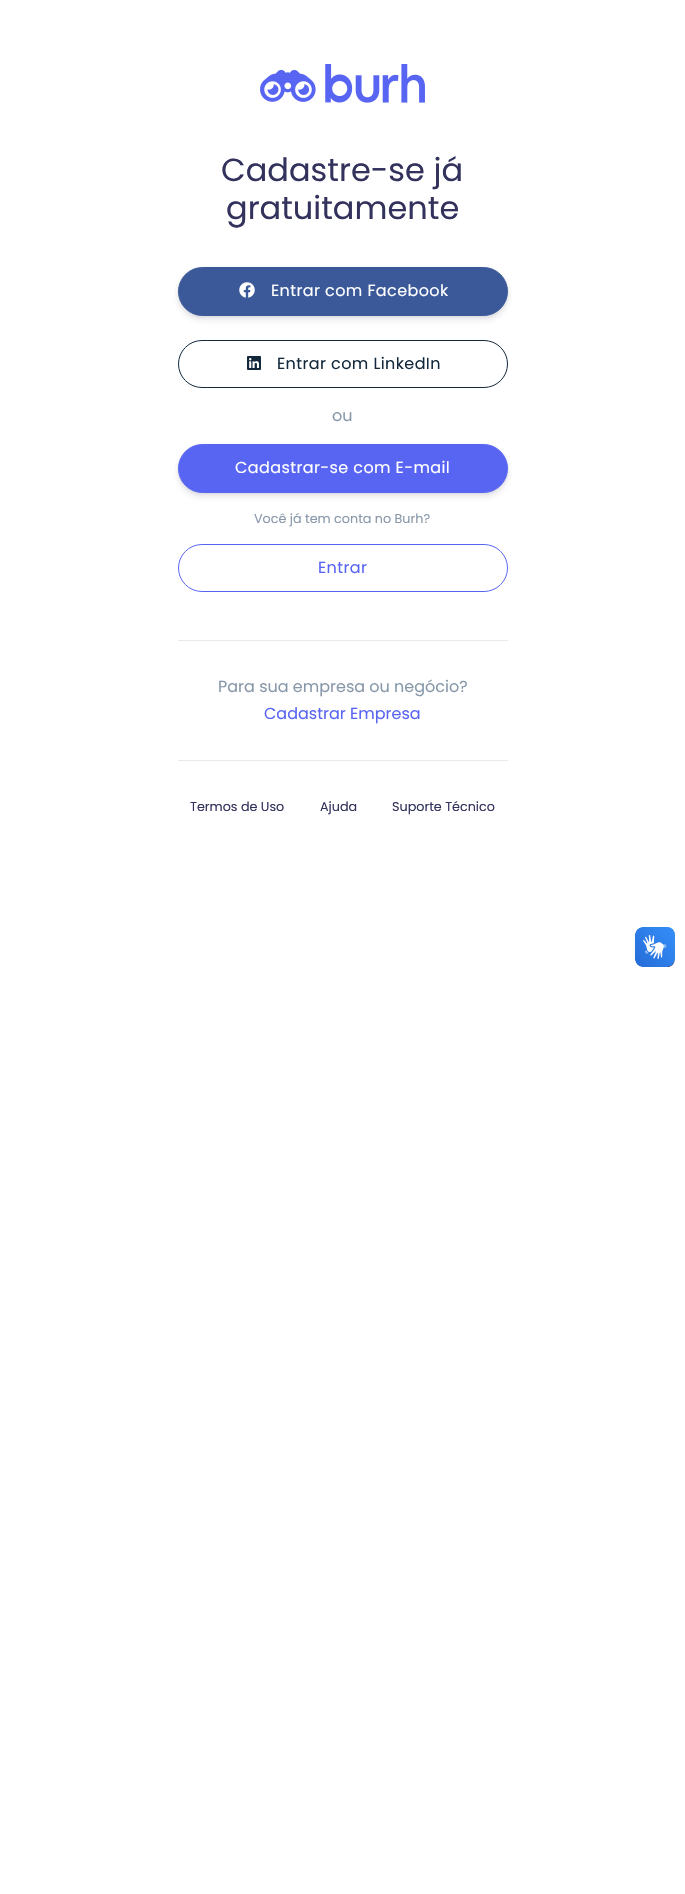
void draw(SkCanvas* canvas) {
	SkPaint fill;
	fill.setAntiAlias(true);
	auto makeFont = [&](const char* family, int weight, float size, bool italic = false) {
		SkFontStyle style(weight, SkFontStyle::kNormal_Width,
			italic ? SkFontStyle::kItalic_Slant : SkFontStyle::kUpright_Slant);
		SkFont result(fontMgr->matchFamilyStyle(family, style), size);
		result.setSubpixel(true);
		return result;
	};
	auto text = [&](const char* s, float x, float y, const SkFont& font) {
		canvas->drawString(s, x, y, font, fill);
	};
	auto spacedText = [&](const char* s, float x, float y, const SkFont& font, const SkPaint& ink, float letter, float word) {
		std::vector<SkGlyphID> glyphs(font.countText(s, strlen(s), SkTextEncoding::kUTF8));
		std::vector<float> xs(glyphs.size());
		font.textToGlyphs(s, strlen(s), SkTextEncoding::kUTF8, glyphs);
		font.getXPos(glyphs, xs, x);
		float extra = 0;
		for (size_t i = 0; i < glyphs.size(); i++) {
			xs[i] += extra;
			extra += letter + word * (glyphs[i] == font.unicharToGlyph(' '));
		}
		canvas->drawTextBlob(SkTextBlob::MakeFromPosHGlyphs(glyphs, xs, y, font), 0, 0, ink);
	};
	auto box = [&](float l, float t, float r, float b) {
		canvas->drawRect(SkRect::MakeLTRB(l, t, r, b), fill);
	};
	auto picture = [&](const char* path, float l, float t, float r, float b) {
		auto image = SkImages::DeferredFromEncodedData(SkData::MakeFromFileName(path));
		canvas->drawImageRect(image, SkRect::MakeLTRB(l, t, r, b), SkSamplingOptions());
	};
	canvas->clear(0xFFFFFFFF);
	picture("image0.png", 260, 64, 425, 103);
	fill.setColor(0x14000000);
	fill.setMaskFilter(SkMaskFilter::MakeBlur(kNormal_SkBlurStyle, 1.5f));
	canvas->drawRoundRect(SkRect::MakeLTRB(178, 268, 508, 317), 24.5f, 24.5f, fill);
	fill.setMaskFilter(nullptr);
	fill.setColor(0x1C32325D);
	fill.setMaskFilter(SkMaskFilter::MakeBlur(kNormal_SkBlurStyle, 3));
	canvas->drawRoundRect(SkRect::MakeLTRB(178, 271, 508, 320), 24.5f, 24.5f, fill);
	fill.setMaskFilter(nullptr);
	fill.setColor(0xFF3B5999);
	canvas->drawRoundRect(SkRect::MakeLTRB(178.5f, 267.5f, 507.5f, 315.5f), 24, 24, fill);
	fill.setStyle(SkPaint::kStroke_Style);
	fill.setStrokeWidth(1);
	canvas->drawRoundRect(SkRect::MakeLTRB(178.5f, 267.5f, 507.5f, 315.5f), 24, 24, fill);
	picture("image1.png", 239, 282, 255, 298);
	fill.setColor(0xFF13293B);
	canvas->drawRoundRect(SkRect::MakeLTRB(178.5f, 340.5f, 507.5f, 387.5f), 23.5f, 23.5f, fill);
	picture("image2.png", 247, 356, 261, 370);
	fill.setStyle(SkPaint::kFill_Style);
	fill.setColor(0x14000000);
	fill.setMaskFilter(SkMaskFilter::MakeBlur(kNormal_SkBlurStyle, 1.5f));
	canvas->drawRoundRect(SkRect::MakeLTRB(178, 445, 508, 494), 24.5f, 24.5f, fill);
	fill.setMaskFilter(nullptr);
	fill.setColor(0x1C32325D);
	fill.setMaskFilter(SkMaskFilter::MakeBlur(kNormal_SkBlurStyle, 3));
	canvas->drawRoundRect(SkRect::MakeLTRB(178, 448, 508, 497), 24.5f, 24.5f, fill);
	fill.setMaskFilter(nullptr);
	fill.setColor(0xFF5865F2);
	canvas->drawRoundRect(SkRect::MakeLTRB(178.5f, 444.5f, 507.5f, 492.5f), 24, 24, fill);
	fill.setStyle(SkPaint::kStroke_Style);
	canvas->drawRoundRect(SkRect::MakeLTRB(178.5f, 444.5f, 507.5f, 492.5f), 24, 24, fill);
	canvas->drawRoundRect(SkRect::MakeLTRB(178.5f, 544.5f, 507.5f, 591.5f), 23.5f, 23.5f, fill);
	fill.setStyle(SkPaint::kFill_Style);
	fill.setColor(0xFFE9E9EA);
	box(178, 640, 508, 641);
	box(178, 760, 508, 761);
	picture("image3.png", 635, 927, 675, 967);
	picture("image4.png", 635, 927, 675, 967);
	auto font1 = makeFont("Poppins", 400, 32);
	fill.setColor(0xFF32325D);
	text("Cadastre-se já", 221, 181, font1);
	text("gratuitamente", 226, 219, font1);
	auto font2 = makeFont("Poppins", 400, 16);
	fill.setColor(0xFFFFFFFF);
	spacedText("Entrar com Facebook", 271, 296, font2, fill, 0.4f, 0);
	fill.setColor(0xFF13293B);
	spacedText("Entrar com LinkedIn", 277, 369, font2, fill, 0.4f, 0);
	fill.setColor(0xFF8898AA);
	text("ou", 332, 421, font2);
	fill.setColor(0xFFFFFFFF);
	spacedText("Cadastrar-se com E-mail", 235, 473, font2, fill, 0.4f, 0);
	auto font3 = makeFont("Poppins", 400, 12.75f);
	fill.setColor(0xFF8898AA);
	text("Você já tem conta no Burh?", 254, 523, font3);
	fill.setColor(0xFF5865F2);
	spacedText("Entrar", 318, 573, font2, fill, 0.4f, 0);
	fill.setColor(0xFF8898AA);
	text("Para sua empresa ou negócio?", 218, 692, font2);
	fill.setColor(0xFF5865F2);
	text("Cadastrar Empresa", 264, 719, font2);
	fill.setColor(0xFF32325D);
	text("Termos de Uso", 190, 811, font3);
	text("Ajuda", 320, 811, font3);
	text("Suporte Técnico", 392, 811, font3);
}
